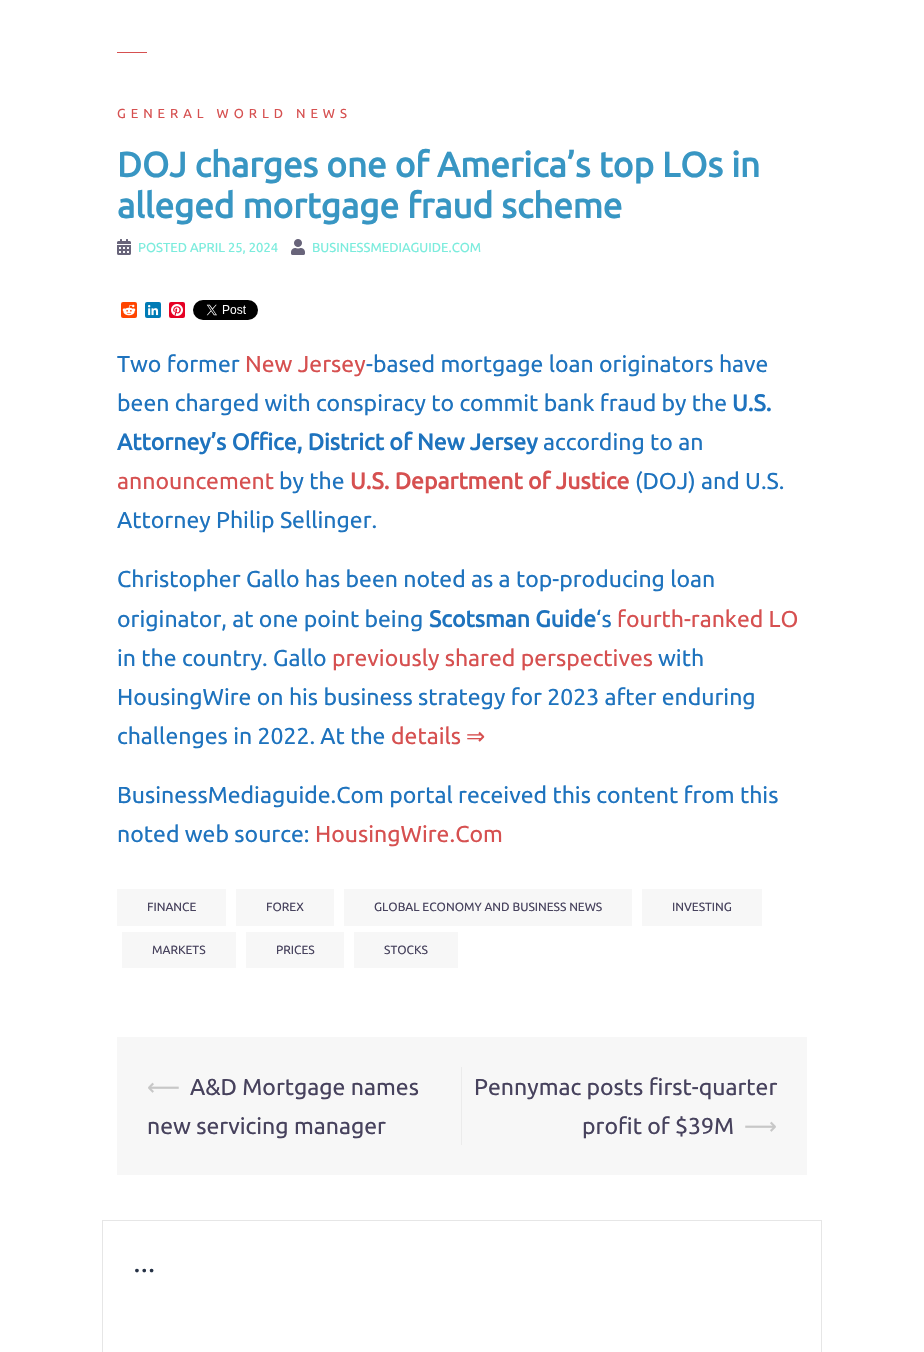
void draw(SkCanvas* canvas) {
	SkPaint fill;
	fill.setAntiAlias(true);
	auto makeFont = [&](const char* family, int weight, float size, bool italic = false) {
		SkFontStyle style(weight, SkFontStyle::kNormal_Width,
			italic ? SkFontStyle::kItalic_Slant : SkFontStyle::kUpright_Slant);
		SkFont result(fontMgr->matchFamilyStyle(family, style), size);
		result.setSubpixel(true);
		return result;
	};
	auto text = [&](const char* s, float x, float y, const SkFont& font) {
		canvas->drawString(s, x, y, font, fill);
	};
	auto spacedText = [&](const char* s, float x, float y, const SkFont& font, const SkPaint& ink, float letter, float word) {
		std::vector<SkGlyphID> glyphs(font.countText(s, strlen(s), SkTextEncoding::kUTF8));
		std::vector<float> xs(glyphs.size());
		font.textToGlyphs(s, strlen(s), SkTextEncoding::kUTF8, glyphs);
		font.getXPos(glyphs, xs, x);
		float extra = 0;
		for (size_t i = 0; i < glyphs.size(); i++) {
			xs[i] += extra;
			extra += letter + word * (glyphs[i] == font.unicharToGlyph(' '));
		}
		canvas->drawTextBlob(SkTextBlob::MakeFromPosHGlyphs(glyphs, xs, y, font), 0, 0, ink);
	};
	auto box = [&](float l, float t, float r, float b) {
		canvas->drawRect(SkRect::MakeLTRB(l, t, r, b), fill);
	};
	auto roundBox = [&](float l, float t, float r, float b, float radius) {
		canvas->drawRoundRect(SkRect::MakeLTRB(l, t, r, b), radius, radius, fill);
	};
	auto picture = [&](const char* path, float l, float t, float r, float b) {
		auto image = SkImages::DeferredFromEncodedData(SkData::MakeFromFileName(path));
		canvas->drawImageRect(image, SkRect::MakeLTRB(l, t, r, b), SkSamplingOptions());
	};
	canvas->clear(0xFFFFFFFF);
	fill.setColor(0xFFD65050);
	box(117, 52, 147, 53);
	picture("image0.png", 117, 239, 131, 255);
	picture("image1.png", 291, 239, 305, 255);
	fill.setColor(0xFFFF4500);
	roundBox(121, 302, 137, 318, 2);
	picture("image2.png", 122, 304, 136, 316);
	fill.setColor(0xFF007BB5);
	roundBox(145, 302, 161, 318, 2);
	picture("image3.png", 148, 305, 159, 316);
	fill.setColor(0xFFE60023);
	roundBox(169, 302, 185, 318, 2);
	picture("image4.png", 171, 304, 183, 316);
	picture("image5.png", 193, 300, 258, 320);
	fill.setColor(0xFFF7F7F7);
	box(117, 889, 226, 926);
	box(236, 889, 334, 926);
	box(344, 889, 632, 926);
	box(642, 889, 762, 926);
	box(122, 932, 236, 968);
	box(246, 932, 344, 968);
	box(354, 932, 458, 968);
	box(117, 1037, 807, 1175);
	fill.setColor(0xFFEBEBEB);
	box(461, 1067, 462, 1145);
	fill.setStyle(SkPaint::kStroke_Style);
	fill.setStrokeWidth(1);
	fill.setColor(0xFFE6E6E6);
	canvas->drawRect(SkRect::MakeLTRB(102.5f, 1220.5f, 821.5f, 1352.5f), fill);
	auto font1 = makeFont("Ubuntu", 400, 13);
	fill.setStyle(SkPaint::kFill_Style);
	fill.setColor(0xFFD65050);
	spacedText("GENERAL WORLD NEWS", 117, 118, font1, fill, 5, 0);
	auto font2 = makeFont("Ubuntu", 700, 35);
	fill.setColor(0xFF3896C3);
	text("DOJ charges one of America’s top LOs in", 117, 177, font2);
	text("alleged mortgage fraud scheme", 117, 218, font2);
	fill.setColor(0xFF7BECDD);
	text("POSTED APRIL 25, 2024", 138, 252, font1);
	text("BUSINESSMEDIAGUIDE.COM", 312, 252, font1);
	auto font3 = makeFont("Ubuntu", 400, 23);
	fill.setColor(0xFF1E73BE);
	text("Two former", 117, 372, font3);
	fill.setColor(0xFFD65050);
	text("New Jersey", 245, 372, font3);
	fill.setColor(0xFF1E73BE);
	text("-based mortgage loan originators have", 366, 372, font3);
	text("been charged with conspiracy to commit bank fraud by the", 117, 411, font3);
	auto font4 = makeFont("Ubuntu", 700, 23);
	text("U.S.", 732, 411, font4);
	text("Attorney’s Office, District of New Jersey", 117, 450, font4);
	text("according to an", 543, 450, font3);
	fill.setColor(0xFFD65050);
	text("announcement", 117, 489, font3);
	fill.setColor(0xFF1E73BE);
	text("by the", 279, 489, font3);
	fill.setColor(0xFFD65050);
	text("U.S. Department of Justice", 350, 489, font4);
	fill.setColor(0xFF1E73BE);
	text("(DOJ) and U.S.", 635, 489, font3);
	text("Attorney Philip Sellinger.", 117, 528, font3);
	text("Christopher Gallo has been noted as a top-producing loan", 117, 587, font3);
	text("originator, at one point being", 117, 627, font3);
	text("Scotsman Guide", 429, 627, font4);
	text("‘s", 596, 627, font3);
	fill.setColor(0xFFD65050);
	text("fourth-ranked LO", 617, 627, font3);
	fill.setColor(0xFF1E73BE);
	text("in the country. Gallo", 117, 666, font3);
	fill.setColor(0xFFD65050);
	text("previously shared perspectives", 332, 666, font3);
	fill.setColor(0xFF1E73BE);
	text("with", 658, 666, font3);
	text("HousingWire on his business strategy for 2023 after enduring", 117, 705, font3);
	text("challenges in 2022. At the", 117, 744, font3);
	fill.setColor(0xFFD65050);
	text("details", 391, 744, font3);
	auto font5 = makeFont("DejaVu Sans", 400, 23);
	text("⇒", 466, 744, font5);
	fill.setColor(0xFF1E73BE);
	text("BusinessMediaguide.Com portal received this content from this", 117, 803, font3);
	text("noted web source:", 117, 842, font3);
	fill.setColor(0xFFD65050);
	text("HousingWire.Com", 315, 842, font3);
	auto font6 = makeFont("Ubuntu", 400, 12);
	fill.setColor(0xFF47425D);
	text("FINANCE", 147, 911, font6);
	text("FOREX", 266, 911, font6);
	text("GLOBAL ECONOMY AND BUSINESS NEWS", 374, 911, font6);
	text("INVESTING", 672, 911, font6);
	text("MARKETS", 152, 954, font6);
	text("PRICES", 276, 954, font6);
	text("STOCKS", 384, 954, font6);
	fill.setColor(0xFFC7C7C7);
	text("⟵", 147, 1095, font5);
	fill.setColor(0xFF47425D);
	text("A&D Mortgage names", 190, 1095, font3);
	text("new servicing manager", 147, 1134, font3);
	text("Pennymac posts first-quarter", 474, 1095, font3);
	text("profit of $39M", 582, 1134, font3);
	fill.setColor(0xFFC7C7C7);
	text("⟶", 744, 1134, font5);
	auto font7 = makeFont("Ubuntu", 700, 22);
	fill.setColor(0xFF263246);
	text("…", 133, 1272, font7);
}
